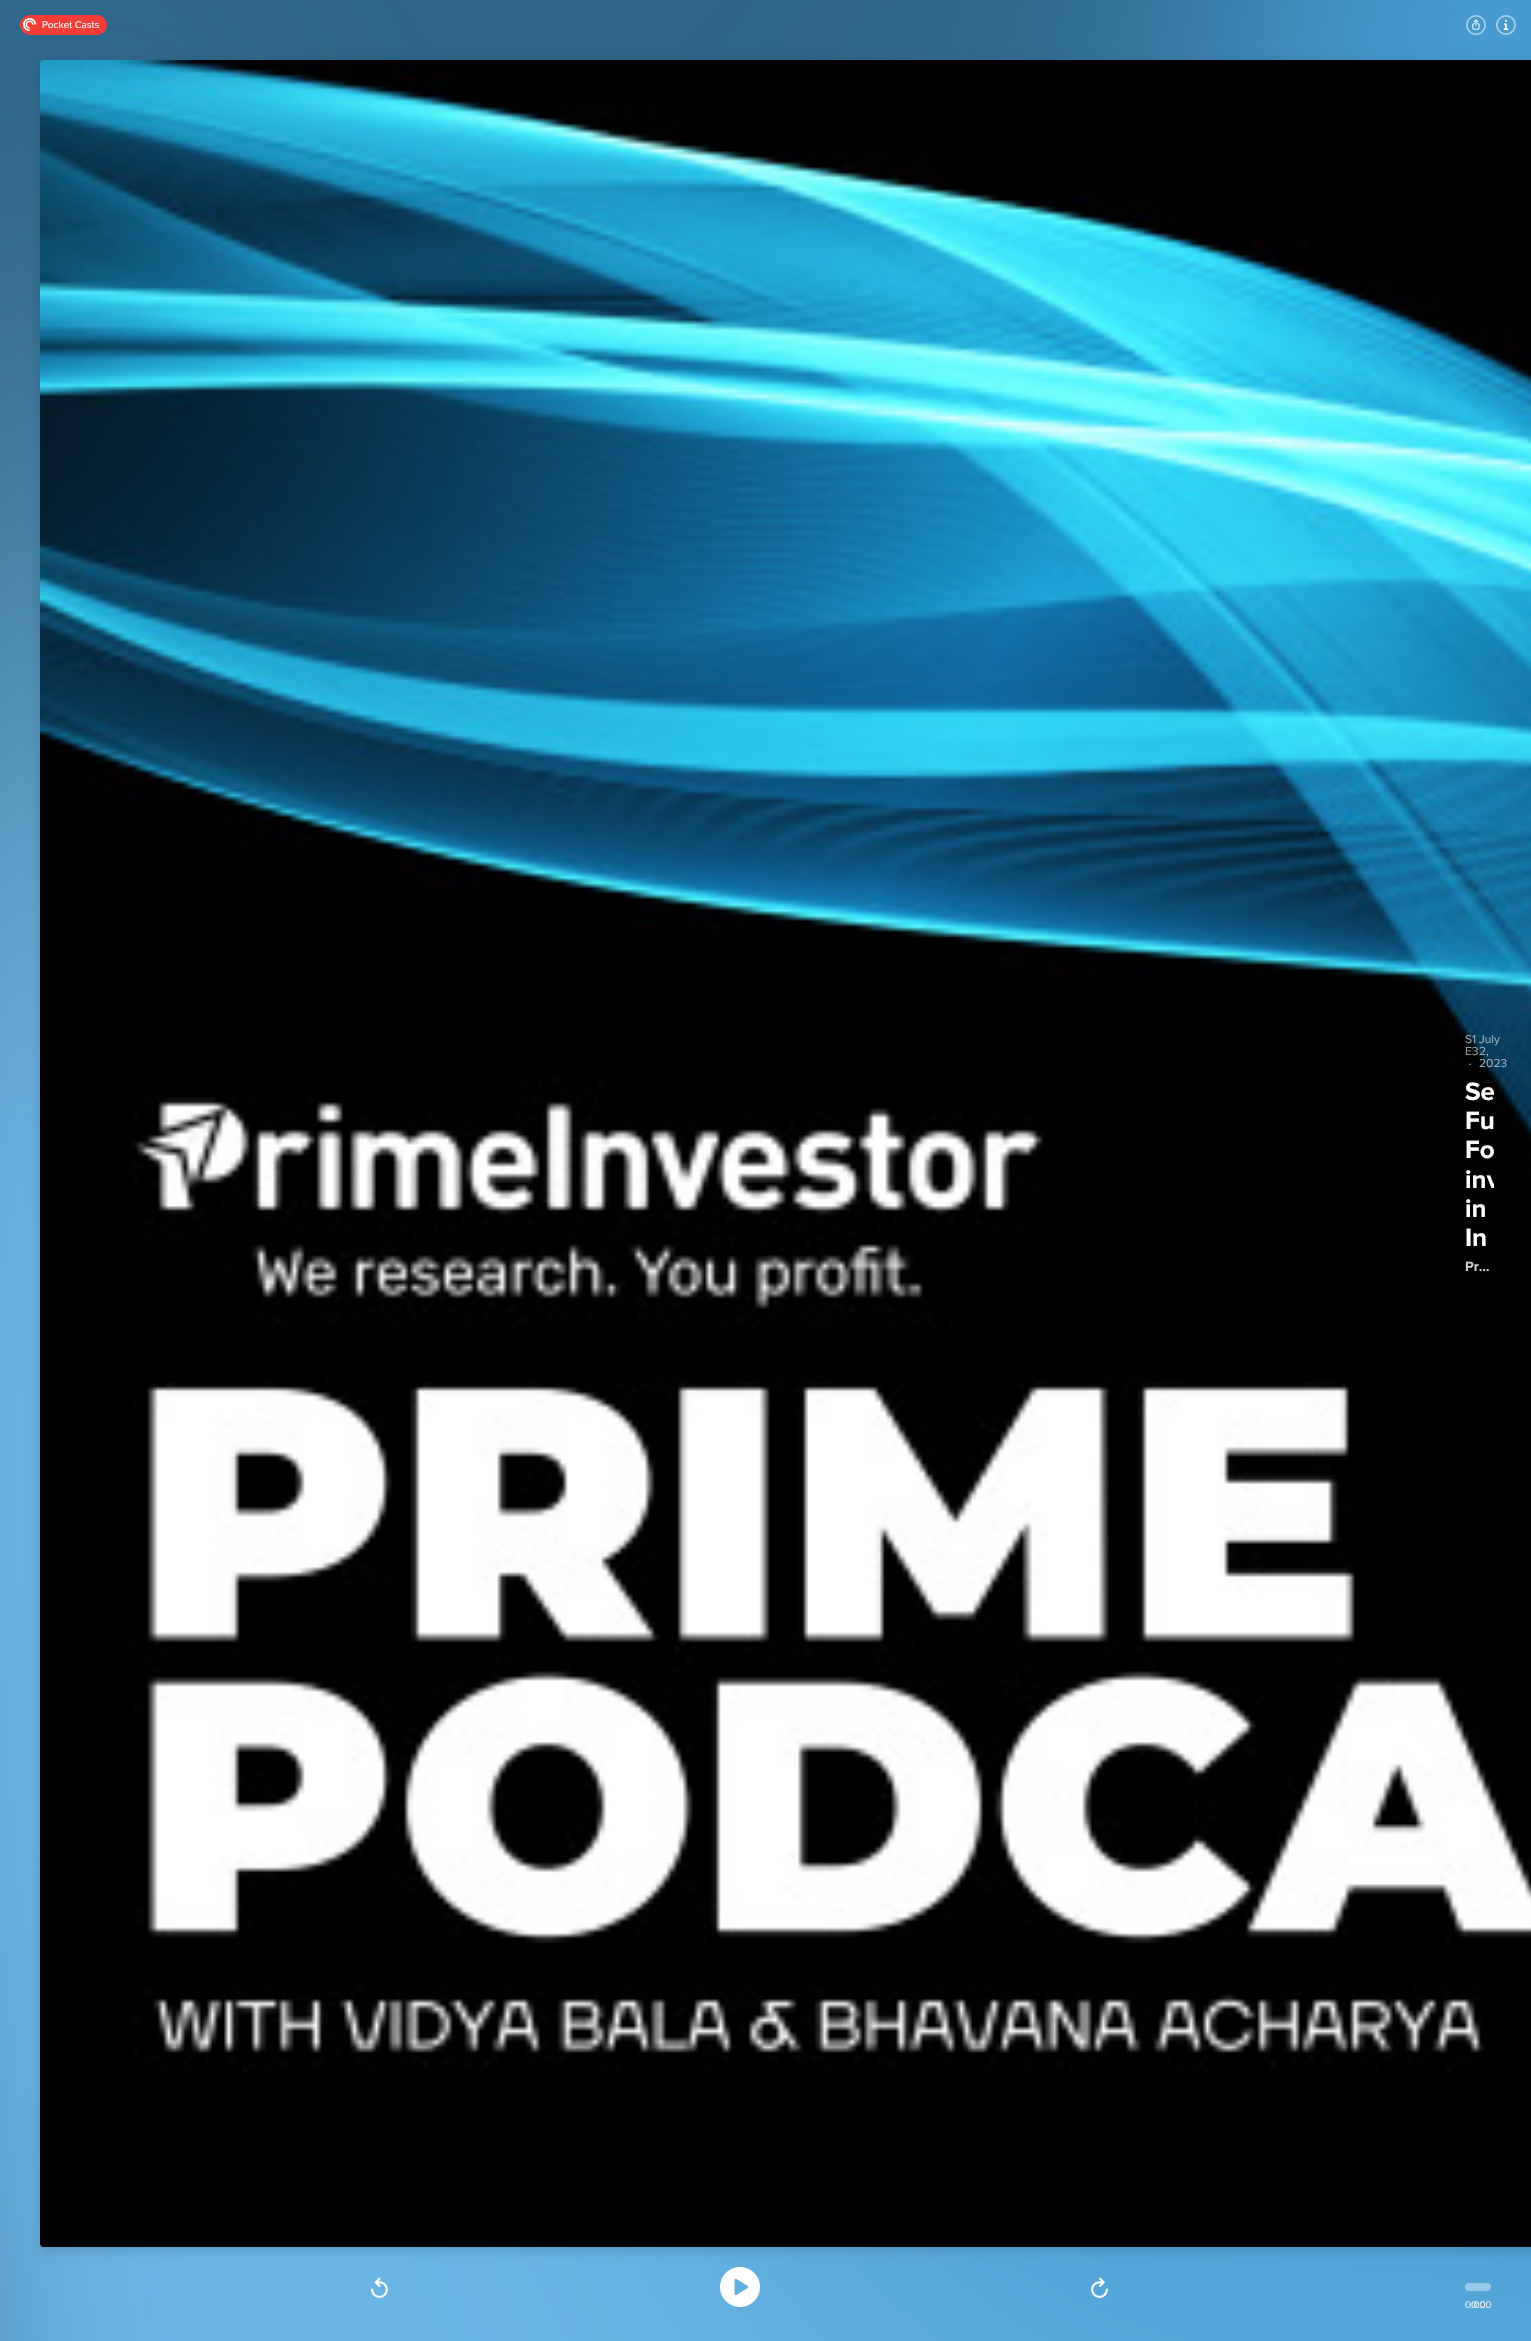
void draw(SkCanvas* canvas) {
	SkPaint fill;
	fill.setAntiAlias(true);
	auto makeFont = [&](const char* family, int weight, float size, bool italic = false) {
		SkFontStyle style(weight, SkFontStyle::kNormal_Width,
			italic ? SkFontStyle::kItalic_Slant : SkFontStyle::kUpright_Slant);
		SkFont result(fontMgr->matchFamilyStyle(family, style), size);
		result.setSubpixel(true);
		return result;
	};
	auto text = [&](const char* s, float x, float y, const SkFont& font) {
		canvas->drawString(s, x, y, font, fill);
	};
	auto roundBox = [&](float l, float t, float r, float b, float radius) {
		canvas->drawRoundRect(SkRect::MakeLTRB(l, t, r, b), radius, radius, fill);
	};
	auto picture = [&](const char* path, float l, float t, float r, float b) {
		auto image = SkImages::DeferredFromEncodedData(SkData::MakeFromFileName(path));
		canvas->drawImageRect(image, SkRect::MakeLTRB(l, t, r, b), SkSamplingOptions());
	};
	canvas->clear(0xFFFFFFFF);
	picture("image0.png", 0, 0, 1531, 2341);
	fill.setColor(0xFFF43D37);
	roundBox(20, 15, 107, 35, 10);
	picture("image1.png", 23, 18, 36, 31);
	picture("image2.png", 1466, 15, 1486, 35);
	picture("image3.png", 1496, 15, 1516, 35);
	fill.setColor(0x26000000);
	fill.setMaskFilter(SkMaskFilter::MakeBlur(kNormal_SkBlurStyle, 6));
	canvas->drawRoundRect(SkRect::MakeLTRB(40, 63, 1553, 2250), 4, 4, fill);
	fill.setMaskFilter(nullptr);
	picture("image4.png", 40, 60, 1531, 2247);
	picture("image5.png", 371, 2277, 388, 2298);
	picture("image6.png", 720, 2267, 760, 2307);
	picture("image7.png", 1091, 2277, 1108, 2298);
	fill.setColor(0xFF98C8E7);
	roundBox(1465, 2283, 1491, 2291, 4);
	auto font1 = makeFont("Proxima Nova", 400, 10);
	fill.setColor(0xFFFFFFFF);
	text("Pocket Casts", 42, 28, font1);
	auto font2 = makeFont("Proxima Nova", 400, 12);
	fill.setColor(0xFF9BA6AE);
	text("S1", 1465, 1043, font2);
	fill.setColor(0xFF9A9C9E);
	text("E3", 1465, 1055, font2);
	auto font3 = makeFont("Proxima Nova", 400, 7);
	text("•", 1469, 1066, font3);
	fill.setColor(0xFF9DB2C0);
	text("July", 1479, 1043, font2);
	fill.setColor(0xFF9EAEB9);
	text("2,", 1479, 1055, font2);
	text("2023", 1479, 1067, font2);
	canvas->save();
	canvas->clipRect(SkRect::MakeLTRB(1462, 1075, 1494, 1254));
	auto font4 = makeFont("Proxima Nova", 700, 26);
	fill.setColor(0xFFFFFFFF);
	text("Se", 1465, 1100, font4);
	canvas->restore();
	text("Fu", 1465, 1129, font4);
	text("Fo", 1465, 1158, font4);
	canvas->save();
	canvas->clipRect(SkRect::MakeLTRB(1462, 1075, 1494, 1254));
	text("inv", 1465, 1188, font4);
	canvas->restore();
	text("in", 1465, 1217, font4);
	text("In", 1465, 1246, font4);
	auto font5 = makeFont("Proxima Nova", 700, 14);
	fill.setColor(0xFFCCCCCC);
	text("Pr…", 1465, 1271, font5);
	fill.setColor(0xFFDDEDF7);
	text("0:00", 1465, 2308, font1);
	text("0:00", 1471, 2308, font1);
}
